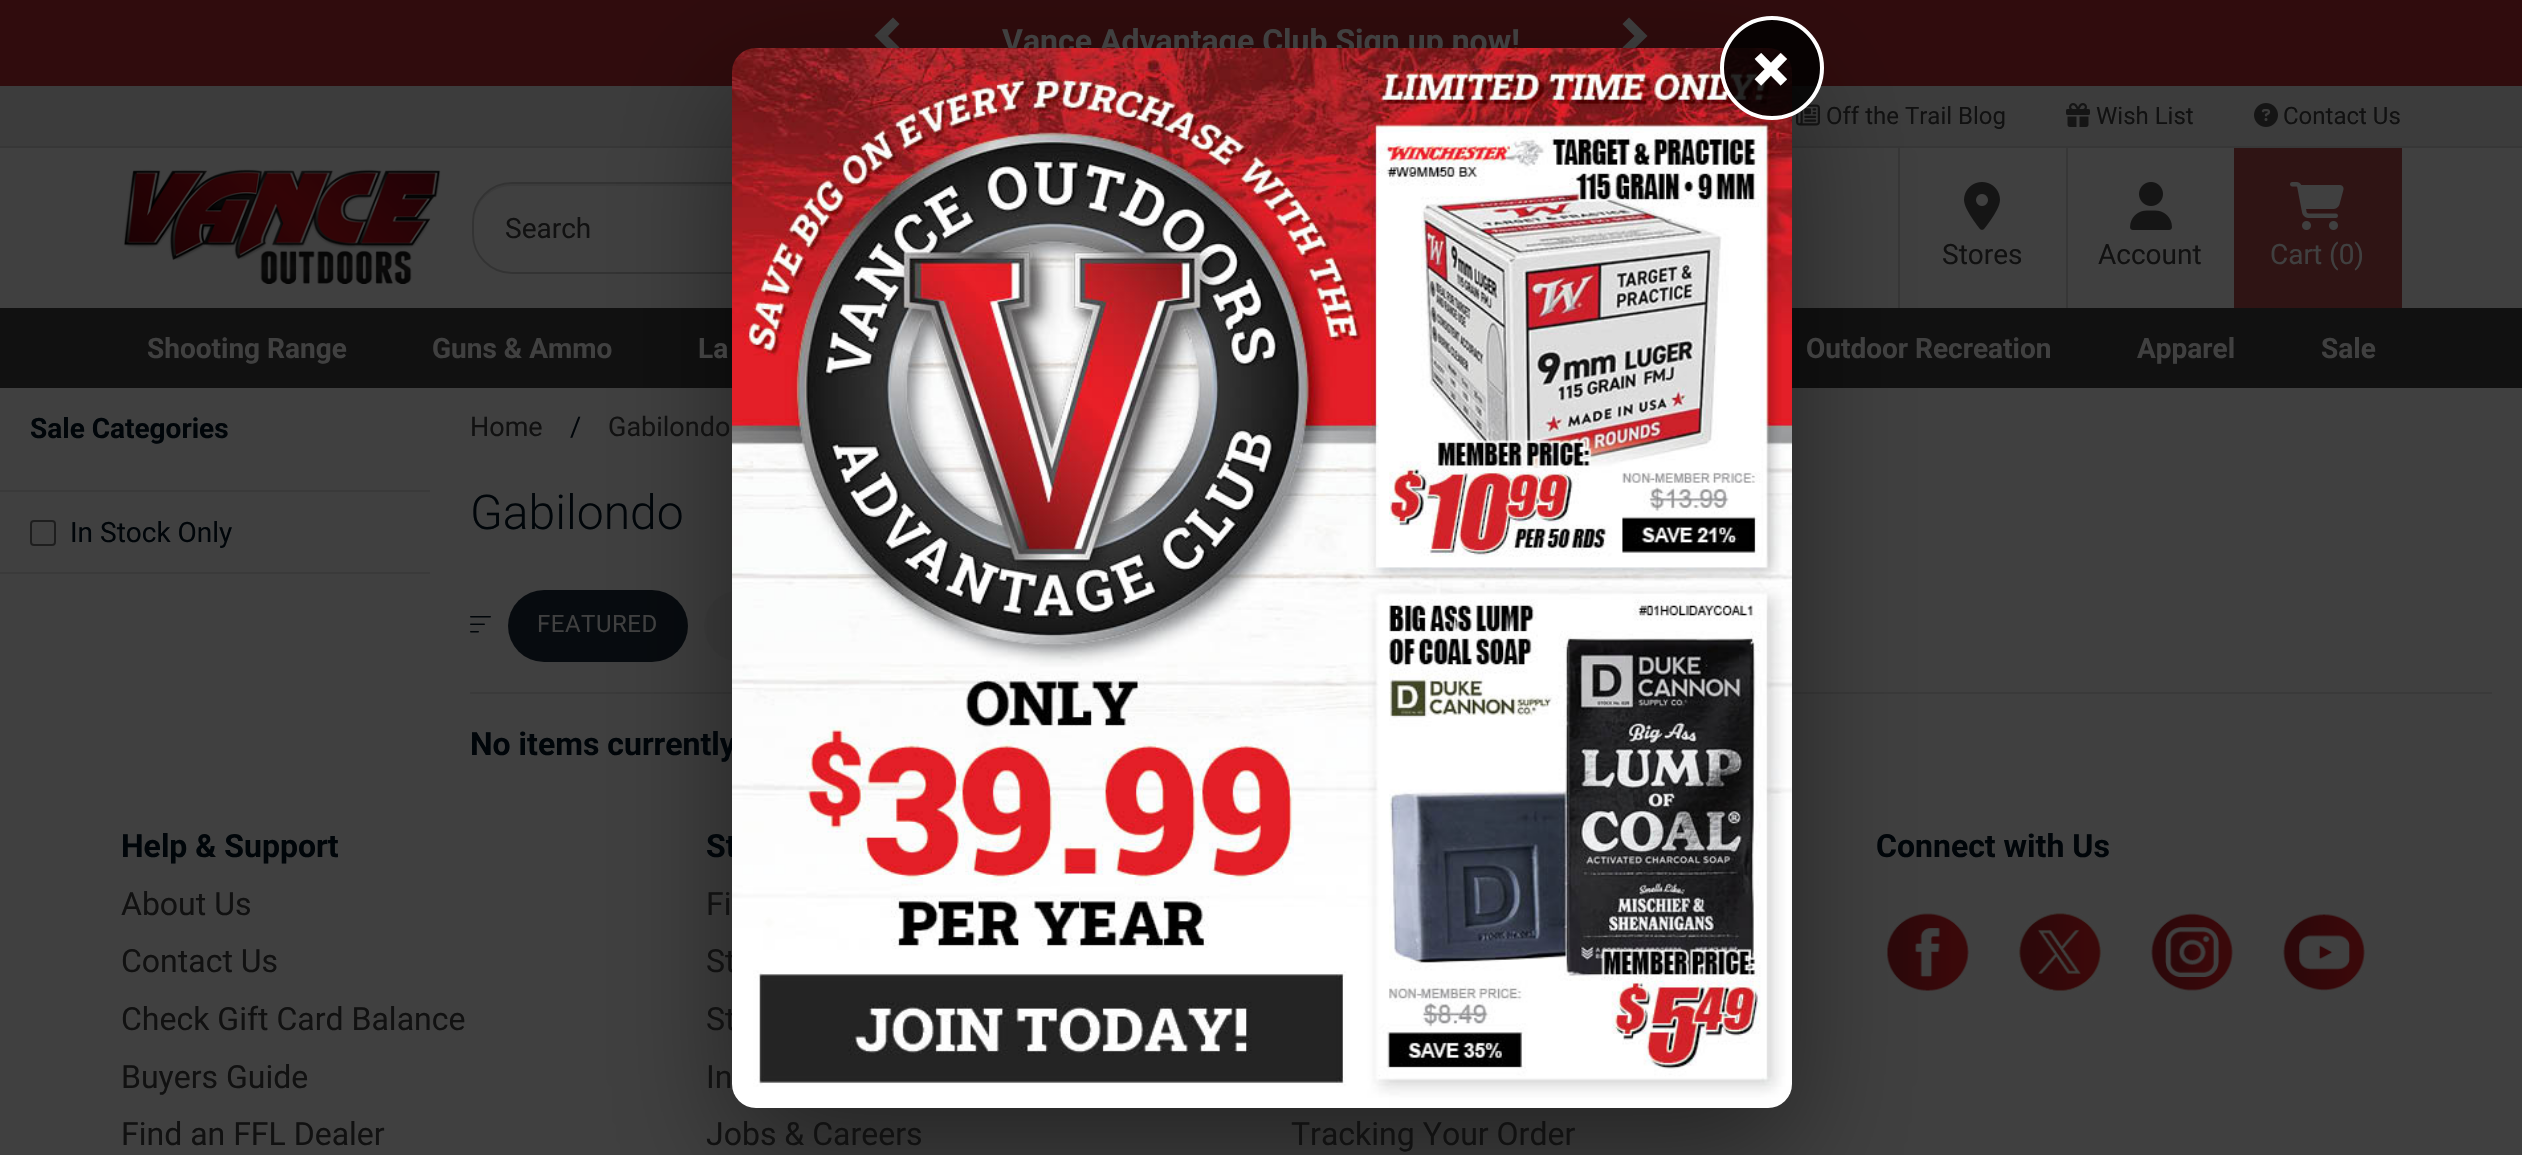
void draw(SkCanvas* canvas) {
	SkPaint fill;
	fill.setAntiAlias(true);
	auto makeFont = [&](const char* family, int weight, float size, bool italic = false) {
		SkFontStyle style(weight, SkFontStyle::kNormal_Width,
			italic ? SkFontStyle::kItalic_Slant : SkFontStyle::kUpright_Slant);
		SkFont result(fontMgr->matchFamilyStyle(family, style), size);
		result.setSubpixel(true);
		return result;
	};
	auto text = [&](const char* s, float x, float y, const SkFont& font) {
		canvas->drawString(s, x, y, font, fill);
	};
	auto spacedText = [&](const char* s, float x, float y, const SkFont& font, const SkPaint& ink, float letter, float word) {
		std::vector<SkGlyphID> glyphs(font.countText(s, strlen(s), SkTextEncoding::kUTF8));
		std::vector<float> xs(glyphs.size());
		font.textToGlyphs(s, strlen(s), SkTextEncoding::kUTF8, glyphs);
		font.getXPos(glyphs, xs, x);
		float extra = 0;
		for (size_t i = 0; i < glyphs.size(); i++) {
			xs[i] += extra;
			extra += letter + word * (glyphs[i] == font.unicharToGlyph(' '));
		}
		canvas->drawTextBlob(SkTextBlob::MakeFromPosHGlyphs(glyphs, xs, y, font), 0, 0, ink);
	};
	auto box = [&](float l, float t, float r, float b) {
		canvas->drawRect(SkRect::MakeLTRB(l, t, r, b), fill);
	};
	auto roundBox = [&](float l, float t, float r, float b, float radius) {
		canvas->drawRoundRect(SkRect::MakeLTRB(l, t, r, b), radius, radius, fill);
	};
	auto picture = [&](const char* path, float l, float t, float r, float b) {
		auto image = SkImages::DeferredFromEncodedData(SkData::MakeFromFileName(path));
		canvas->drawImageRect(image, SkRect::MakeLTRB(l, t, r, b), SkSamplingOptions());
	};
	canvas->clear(0xFF404040);
	fill.setColor(0xFF300C0D);
	box(0, 0, 2522, 86);
	fill.setColor(0xFF404040);
	canvas->drawPath(SkPathBuilder().moveTo(899.5f, 24).lineTo(888, 36).lineTo(899.5f, 47.5f).lineTo(893, 54).lineTo(874.5f, 35.5f).lineTo(893, 17.5f).close().detach(), fill);
	canvas->drawPath(SkPathBuilder().moveTo(1647.5f, 36).lineTo(1629, 54).lineTo(1622.5f, 47.5f).lineTo(1634.5f, 36).lineTo(1622.5f, 24).lineTo(1629, 17.5f).close().detach(), fill);
	fill.setColor(0xFF3C3C3C);
	box(0, 86, 2522, 146);
	fill.setColor(0xFF373737);
	box(0, 146, 2522, 148);
	picture("image1.png", 1796, 104, 1820, 126);
	fill.setColor(0xFF3B3B3B);
	canvas->drawPath(SkPathBuilder().moveTo(512, 186).lineTo(1326, 186).lineTo(1326, 184).lineTo(512, 184).cubicTo(491, 184, 474, 201, 474, 222).lineTo(474, 224).cubicTo(474, 203, 491, 186, 512, 186).close().detach(), fill);
	fill.setStyle(SkPaint::kStroke_Style);
	fill.setStrokeWidth(2);
	fill.setColor(0xFF333333);
	canvas->drawPath(SkPathBuilder().moveTo(512, 183).lineTo(1327, 183).lineTo(1327, 273).lineTo(512, 273).cubicTo(490.5f, 273, 473, 255.5f, 473, 234).lineTo(473, 222).cubicTo(473, 200.5f, 490.5f, 183, 512, 183).close().detach(), fill);
	fill.setStyle(SkPaint::kFill_Style);
	fill.setColor(0xFF373737);
	box(1898, 148, 1900, 308);
	picture("image5.png", 1964, 182, 2000, 230);
	fill.setColor(0xFF111111);
	box(0, 308, 2522, 388);
	fill.setColor(0xFF3A3A3A);
	box(470, 692, 2492, 694);
	fill.setColor(0xFF070B0F);
	roundBox(508, 590, 688, 662, 36);
	fill.setColor(0xFF3D3D3D);
	roundBox(704, 590, 860, 662, 36);
	picture("image9.png", 1887, 913, 1969, 991);
	fill.setColor(0x73000000);
	fill.setMaskFilter(SkMaskFilter::MakeBlur(kNormal_SkBlurStyle, 60));
	canvas->drawRoundRect(SkRect::MakeLTRB(732, 88, 1792, 1148), 24, 24, fill);
	fill.setMaskFilter(nullptr);
	picture("image2.png", 2066, 103, 2090, 127);
	picture("image3.png", 2254, 103, 2278, 127);
	picture("image4.png", 123, 169, 441, 284);
	fill.setColor(0xFF373737);
	box(2066, 148, 2068, 308);
	picture("image6.png", 2130, 182, 2172, 230);
	fill.setColor(0xFF2F1414);
	box(2234, 148, 2402, 308);
	picture("image7.png", 2290, 182, 2344, 230);
	fill.setColor(0xFF3A3A3A);
	box(0, 572, 430, 574);
	box(0, 490, 430, 492);
	fill.setStyle(SkPaint::kStroke_Style);
	fill.setColor(0xFF1E1E1E);
	canvas->drawRoundRect(SkRect::MakeLTRB(31, 521, 55, 545), 3, 3, fill);
	picture("image8.png", 470, 616, 491, 633);
	picture("image10.png", 2019, 913, 2101, 991);
	picture("image11.png", 2151, 913, 2233, 991);
	picture("image12.png", 2283, 914, 2365, 991);
	auto font1 = makeFont("Roboto", 700, 32);
	fill.setStyle(SkPaint::kFill_Style);
	fill.setColor(0xFF404040);
	text("Vance Advantage Club Sign up now!", 1002, 52, font1);
	auto font2 = makeFont("Roboto", 400, 24);
	fill.setColor(0xFF111111);
	text("Off the Trail Blog", 1826, 124, font2);
	text("Wish List", 2096, 124, font2);
	text("Contact Us", 2283, 124, font2);
	auto font3 = makeFont("Roboto", 400, 28);
	text("Search", 505, 238, font3);
	text("Stores", 1942, 264, font3);
	text("Account", 2098, 264, font3);
	fill.setColor(0xFF404040);
	text("Cart (0)", 2270, 264, font3);
	auto font4 = makeFont("Roboto", 700, 28);
	text("Shooting Range", 147, 358, font4);
	text("Guns & Ammo", 432, 358, font4);
	text("La", 698, 358, font4);
	text("Outdoor Recreation", 1806, 358, font4);
	text("Apparel", 2137, 358, font4);
	text("Sale", 2321, 358, font4);
	fill.setColor(0xFF000509);
	text("Sale Categories", 30, 438, font4);
	text("In Stock Only", 70, 542, font3);
	auto font5 = makeFont("Roboto", 400, 27);
	fill.setColor(0xFF111111);
	text("Home", 470, 436, font5);
	fill.setColor(0xFF000509);
	text("/", 570, 436, font5);
	fill.setColor(0xFF111111);
	text("Gabilondo", 608, 436, font5);
	auto font6 = makeFont("Roboto", 300, 48);
	fill.setColor(0xFF000509);
	text("Gabilondo", 470, 529, font6);
	fill.setColor(0xFF404040);
	spacedText("FEATURED", 537, 632, font2, fill, 0.5f, 0);
	fill.setColor(0xFF000509);
	text("No items currently", 470, 755, font1);
	text("Help & Support", 121, 857, font1);
	auto font7 = makeFont("Roboto", 400, 32);
	fill.setColor(0xFF111111);
	text("About Us", 121, 915, font7);
	text("Contact Us", 121, 972, font7);
	text("Check Gift Card Balance", 121, 1030, font7);
	text("Buyers Guide", 121, 1088, font7);
	text("Find an FFL Dealer", 121, 1145, font7);
	fill.setColor(0xFF000509);
	text("St", 706, 857, font1);
	fill.setColor(0xFF111111);
	text("Fi", 706, 915, font7);
	text("St", 706, 972, font7);
	text("St", 706, 1030, font7);
	picture("image0.png", 732, 48, 1792, 1108);
	fill.setColor(0xD9000000);
	canvas->drawCircle(1772, 68, 50, fill);
	fill.setStyle(SkPaint::kStroke_Style);
	fill.setStrokeWidth(4);
	fill.setColor(0xFFFFFFFF);
	canvas->drawCircle(1772, 68, 50, fill);
	auto font8 = makeFont("Roboto", 900, 68);
	fill.setStyle(SkPaint::kFill_Style);
	text("×", 1753, 92, font8);
	fill.setColor(0xFF111111);
	text("In", 706, 1088, font7);
	text("Jobs & Careers", 706, 1145, font7);
	fill.setColor(0xFF000509);
	text("Connect with Us", 1876, 857, font1);
	fill.setColor(0xFF111111);
	text("Tracking Your Order", 1291, 1145, font7);
}
